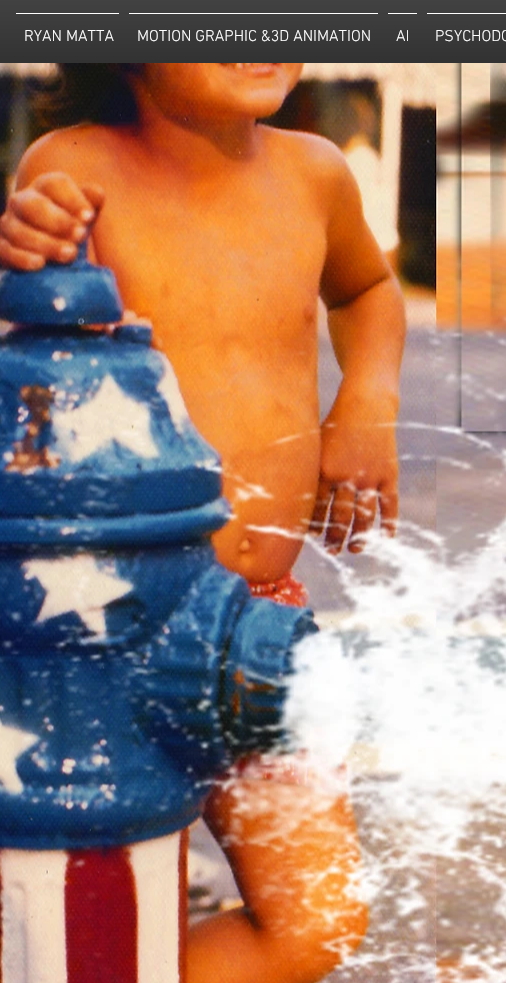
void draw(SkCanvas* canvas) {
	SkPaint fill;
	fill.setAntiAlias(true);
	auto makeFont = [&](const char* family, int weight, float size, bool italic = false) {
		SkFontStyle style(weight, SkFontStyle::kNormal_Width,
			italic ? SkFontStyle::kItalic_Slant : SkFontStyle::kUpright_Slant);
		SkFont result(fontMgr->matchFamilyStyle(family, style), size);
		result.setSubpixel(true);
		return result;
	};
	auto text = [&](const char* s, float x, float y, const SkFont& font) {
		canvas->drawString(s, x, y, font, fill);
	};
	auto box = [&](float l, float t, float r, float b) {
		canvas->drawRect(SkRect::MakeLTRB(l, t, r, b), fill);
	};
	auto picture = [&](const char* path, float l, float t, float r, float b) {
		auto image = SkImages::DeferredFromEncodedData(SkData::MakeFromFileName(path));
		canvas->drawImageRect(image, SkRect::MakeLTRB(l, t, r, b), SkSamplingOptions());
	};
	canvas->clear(0xFFFFFFFF);
	fill.setColor(0xFF000000);
	box(0, 0, 506, 63);
	picture("image0.png", 0, 0, 506, 63);
	fill.setColor(0xFFFFFFFF);
	box(16, 13, 119, 14);
	box(129, 13, 378, 14);
	box(388, 13, 417, 14);
	box(427, 13, 506, 14);
	picture("image1.png", 0, 63, 506, 983);
	auto font1 = makeFont("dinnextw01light", 300, 16);
	text("RYAN MATTA", 24, 41, font1);
	text("MOTION GRAPHIC &3D ANIMATION", 137, 41, font1);
	text("AI", 396, 41, font1);
	text("PSYCHODO", 435, 41, font1);
}
